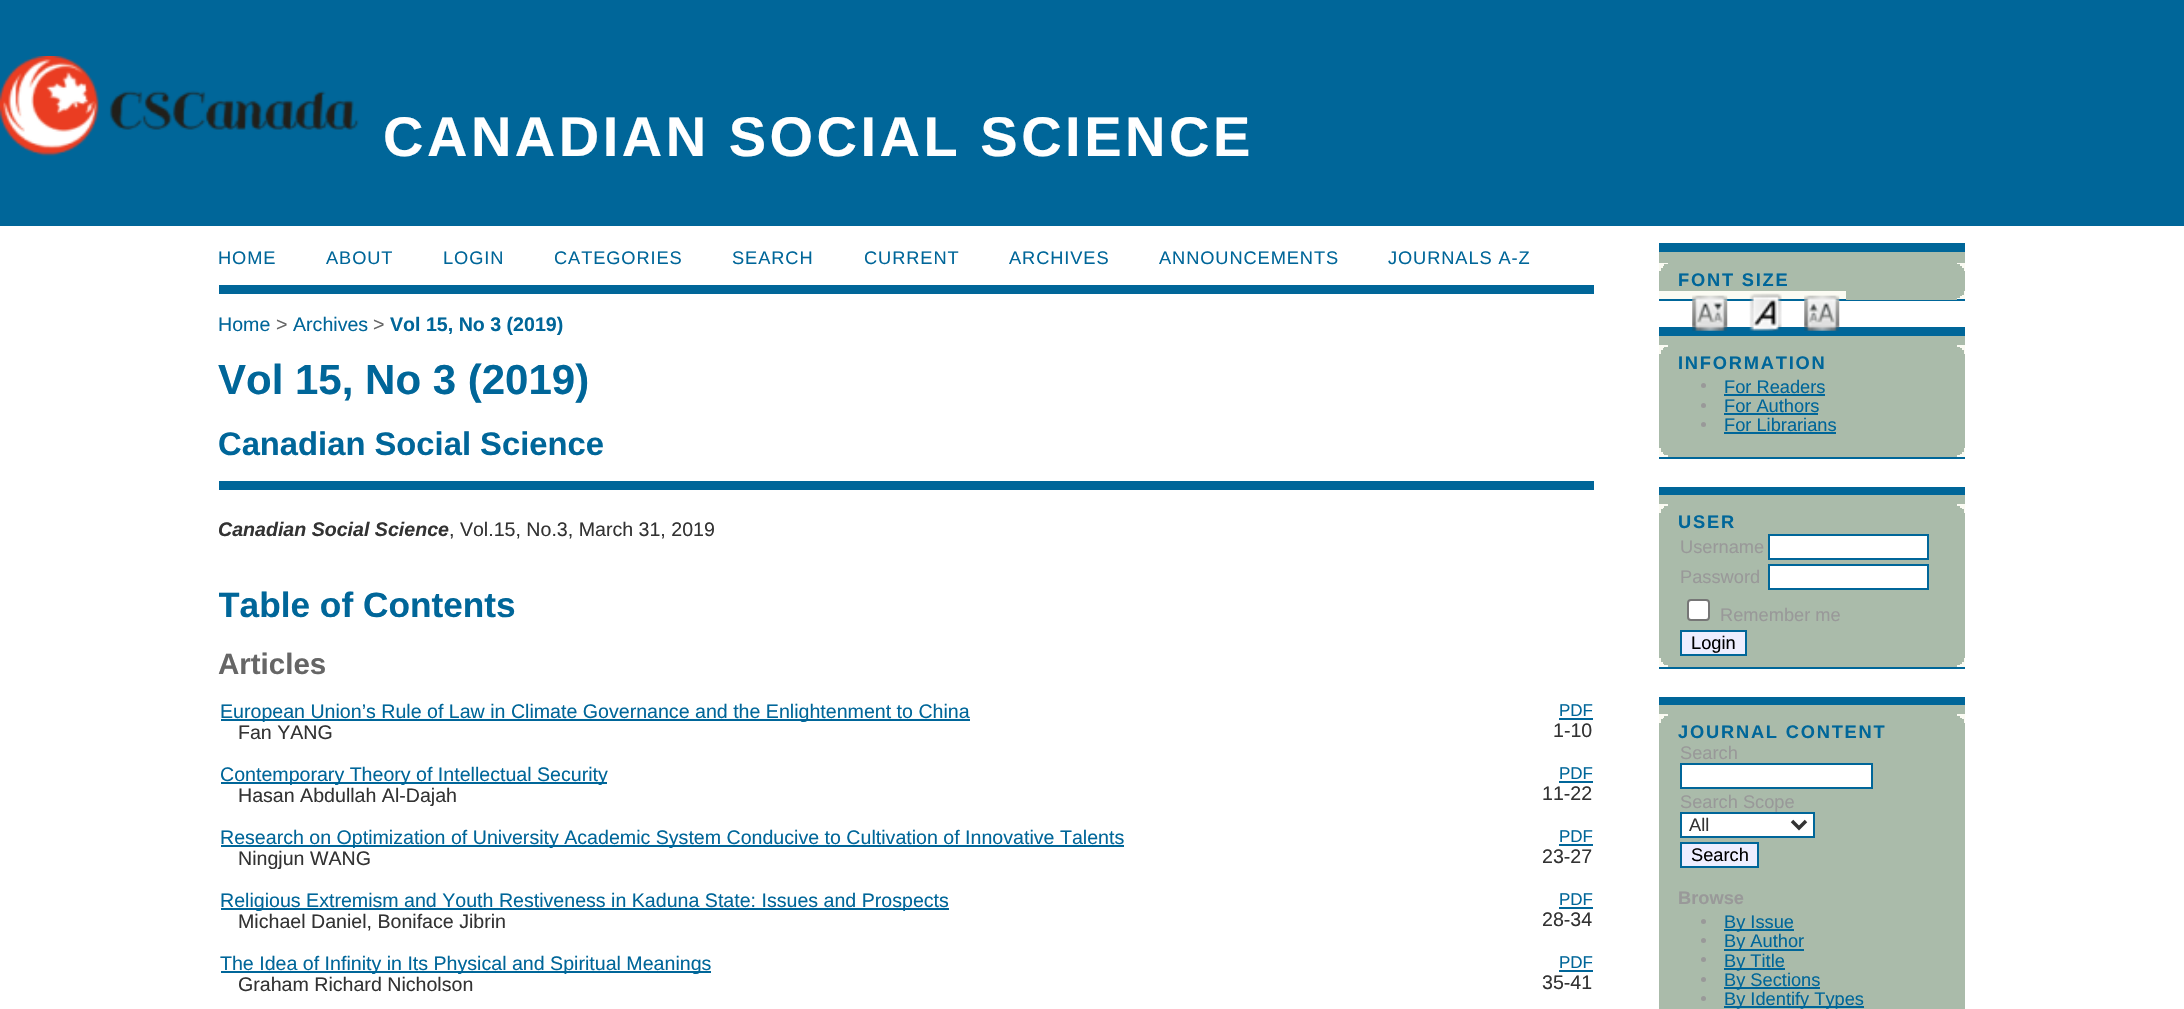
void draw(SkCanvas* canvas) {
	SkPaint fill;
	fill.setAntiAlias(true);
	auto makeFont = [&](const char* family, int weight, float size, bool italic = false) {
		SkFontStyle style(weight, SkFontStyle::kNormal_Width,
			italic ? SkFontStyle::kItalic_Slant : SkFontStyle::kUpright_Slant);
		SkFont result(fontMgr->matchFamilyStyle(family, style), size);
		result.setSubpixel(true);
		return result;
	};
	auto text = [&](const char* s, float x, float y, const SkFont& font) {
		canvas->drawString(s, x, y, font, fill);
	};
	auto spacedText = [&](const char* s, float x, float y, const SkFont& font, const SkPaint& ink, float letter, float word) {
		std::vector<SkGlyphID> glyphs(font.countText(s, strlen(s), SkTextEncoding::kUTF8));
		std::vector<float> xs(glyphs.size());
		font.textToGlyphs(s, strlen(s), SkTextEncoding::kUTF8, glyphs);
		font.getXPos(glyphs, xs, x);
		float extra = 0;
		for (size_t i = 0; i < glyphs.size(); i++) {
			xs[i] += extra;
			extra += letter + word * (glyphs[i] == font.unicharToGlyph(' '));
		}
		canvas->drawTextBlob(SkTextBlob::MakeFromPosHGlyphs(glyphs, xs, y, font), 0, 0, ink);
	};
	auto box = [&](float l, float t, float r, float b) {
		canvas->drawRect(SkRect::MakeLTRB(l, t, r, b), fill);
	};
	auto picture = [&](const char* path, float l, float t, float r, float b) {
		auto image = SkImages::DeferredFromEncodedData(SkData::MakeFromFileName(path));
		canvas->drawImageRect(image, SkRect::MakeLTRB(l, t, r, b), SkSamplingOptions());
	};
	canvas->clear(0xFFFFFFFF);
	fill.setColor(0xFF006699);
	box(0, 0, 2184, 226);
	picture("image0.png", 0, 56, 359, 156);
	box(219, 285, 1594, 294);
	box(219, 481, 1594, 490);
	box(221, 719, 970, 721);
	box(1559, 718, 1593, 720);
	box(221, 782, 607, 784);
	box(1559, 781, 1593, 783);
	box(221, 845, 1124, 847);
	box(1559, 844, 1593, 846);
	box(221, 908, 949, 910);
	box(1559, 907, 1593, 909);
	box(221, 971, 711, 973);
	box(1559, 970, 1593, 972);
	fill.setColor(0xFFAABBAA);
	box(1659, 252, 1965, 291);
	fill.setColor(0xFF006699);
	box(1659, 243, 1965, 252);
	box(1659, 299, 1965, 301);
	fill.setColor(0xFFFBFBF3);
	box(1659, 263, 1965, 271);
	fill.setColor(0xFFAABBAA);
	box(1668, 263, 1957, 264);
	box(1664, 264, 1960, 266);
	box(1663, 266, 1962, 268);
	box(1661, 268, 1964, 271);
	fill.setColor(0xFFFBFBF3);
	box(1659, 291, 1965, 299);
	fill.setColor(0xFF006699);
	box(1659, 327, 1965, 336);
	picture("image1.png", 1692, 295, 1728, 331);
	picture("image2.png", 1749, 293, 1782, 331);
	picture("image3.png", 1804, 295, 1840, 331);
	fill.setColor(0xFFAABBAA);
	box(1846, 291, 1964, 295);
	box(1846, 295, 1962, 296);
	box(1846, 296, 1960, 298);
	box(1846, 298, 1957, 300);
	box(1659, 336, 1965, 448);
	fill.setColor(0xFF006699);
	box(1659, 457, 1965, 459);
	fill.setColor(0xFFFBFBF3);
	box(1659, 345, 1965, 354);
	fill.setColor(0xFFAABBAA);
	box(1668, 345, 1957, 347);
	box(1664, 347, 1960, 348);
	box(1663, 348, 1962, 350);
	box(1661, 350, 1964, 354);
	fill.setColor(0xFF999999);
	canvas->drawCircle(1703.5f, 385.5f, 2.5f, fill);
	fill.setColor(0xFF006699);
	box(1724, 394, 1825, 396);
	fill.setColor(0xFF999999);
	canvas->drawCircle(1703.5f, 405.5f, 2.5f, fill);
	fill.setColor(0xFF006699);
	box(1724, 413, 1818, 415);
	fill.setColor(0xFF999999);
	canvas->drawCircle(1703.5f, 424.5f, 2.5f, fill);
	fill.setColor(0xFF006699);
	box(1724, 432, 1836, 434);
	fill.setColor(0xFFFBFBF3);
	box(1659, 448, 1965, 457);
	fill.setColor(0xFFAABBAA);
	box(1661, 448, 1964, 452);
	box(1663, 452, 1962, 454);
	box(1664, 454, 1960, 455);
	box(1668, 455, 1957, 457);
	box(1659, 495, 1965, 658);
	fill.setColor(0xFF006699);
	box(1659, 487, 1965, 495);
	box(1659, 667, 1965, 669);
	fill.setColor(0xFFFBFBF3);
	box(1659, 504, 1965, 513);
	fill.setColor(0xFFAABBAA);
	box(1668, 504, 1957, 506);
	box(1664, 506, 1960, 508);
	box(1663, 508, 1962, 509);
	box(1661, 509, 1964, 513);
	fill.setColor(0xFFFFFFFF);
	canvas->drawRect(SkRect::MakeLTRB(1769, 535, 1928, 559), fill);
	fill.setStyle(SkPaint::kStroke_Style);
	fill.setStrokeWidth(2);
	fill.setColor(0xFF006699);
	canvas->drawRect(SkRect::MakeLTRB(1769, 535, 1928, 559), fill);
	fill.setStyle(SkPaint::kFill_Style);
	fill.setColor(0xFFFFFFFF);
	canvas->drawRect(SkRect::MakeLTRB(1769, 565, 1928, 589), fill);
	fill.setStyle(SkPaint::kStroke_Style);
	fill.setColor(0xFF006699);
	canvas->drawRect(SkRect::MakeLTRB(1769, 565, 1928, 589), fill);
	fill.setStyle(SkPaint::kFill_Style);
	fill.setColor(0xFFFFFFFF);
	canvas->drawRoundRect(SkRect::MakeLTRB(1688, 600, 1709, 620), 3, 3, fill);
	fill.setStyle(SkPaint::kStroke_Style);
	fill.setColor(0xFF767676);
	canvas->drawRoundRect(SkRect::MakeLTRB(1688, 600, 1709, 620), 3, 3, fill);
	fill.setStyle(SkPaint::kFill_Style);
	fill.setColor(0xFFEEEEFF);
	canvas->drawRect(SkRect::MakeLTRB(1681, 631, 1746, 655), fill);
	fill.setStyle(SkPaint::kStroke_Style);
	fill.setColor(0xFF006699);
	canvas->drawRect(SkRect::MakeLTRB(1681, 631, 1746, 655), fill);
	fill.setStyle(SkPaint::kFill_Style);
	fill.setColor(0xFFFBFBF3);
	box(1659, 658, 1965, 667);
	fill.setColor(0xFFAABBAA);
	box(1661, 658, 1964, 662);
	box(1663, 662, 1962, 664);
	box(1664, 664, 1960, 665);
	box(1668, 665, 1957, 667);
	box(1659, 705, 1965, 1009);
	fill.setColor(0xFF006699);
	box(1659, 697, 1965, 705);
	fill.setColor(0xFFFBFBF3);
	box(1659, 714, 1965, 723);
	fill.setColor(0xFFAABBAA);
	box(1668, 714, 1957, 716);
	box(1664, 716, 1960, 718);
	box(1663, 718, 1962, 719);
	box(1661, 719, 1964, 723);
	fill.setColor(0xFFFFFFFF);
	canvas->drawRect(SkRect::MakeLTRB(1681, 764, 1872, 788), fill);
	fill.setStyle(SkPaint::kStroke_Style);
	fill.setColor(0xFF006699);
	canvas->drawRect(SkRect::MakeLTRB(1681, 764, 1872, 788), fill);
	fill.setStyle(SkPaint::kFill_Style);
	fill.setColor(0xFFFFFFFF);
	canvas->drawRect(SkRect::MakeLTRB(1681, 813, 1814, 837), fill);
	fill.setStyle(SkPaint::kStroke_Style);
	fill.setColor(0xFF006699);
	canvas->drawRect(SkRect::MakeLTRB(1681, 813, 1814, 837), fill);
	fill.setStrokeWidth(3.5f);
	fill.setColor(0xFF333333);
	canvas->drawPath(SkPathBuilder().moveTo(1792, 821).lineTo(1799, 828).lineTo(1806, 821).detach(), fill);
	fill.setStyle(SkPaint::kFill_Style);
	fill.setColor(0xFFEEEEFF);
	canvas->drawRect(SkRect::MakeLTRB(1681, 843, 1758, 867), fill);
	fill.setStyle(SkPaint::kStroke_Style);
	fill.setStrokeWidth(2);
	fill.setColor(0xFF006699);
	canvas->drawRect(SkRect::MakeLTRB(1681, 843, 1758, 867), fill);
	fill.setStyle(SkPaint::kFill_Style);
	fill.setColor(0xFF999999);
	canvas->drawCircle(1703.5f, 921.5f, 2.5f, fill);
	fill.setColor(0xFF006699);
	box(1724, 929, 1794, 931);
	fill.setColor(0xFF999999);
	canvas->drawCircle(1703.5f, 940.5f, 2.5f, fill);
	fill.setColor(0xFF006699);
	box(1724, 949, 1804, 951);
	fill.setColor(0xFF999999);
	canvas->drawCircle(1703.5f, 959.5f, 2.5f, fill);
	fill.setColor(0xFF006699);
	box(1724, 968, 1785, 970);
	fill.setColor(0xFF999999);
	canvas->drawCircle(1703.5f, 979.5f, 2.5f, fill);
	fill.setColor(0xFF006699);
	box(1724, 987, 1820, 989);
	fill.setColor(0xFF999999);
	canvas->drawCircle(1703.5f, 998.5f, 2.5f, fill);
	fill.setColor(0xFF006699);
	box(1724, 1006, 1864, 1008);
	auto font1 = makeFont("Liberation Sans", 700, 56);
	fill.setColor(0xFFFFFFFF);
	spacedText("CANADIAN SOCIAL SCIENCE", 383, 156, font1, fill, 3.5f, 0);
	auto font2 = makeFont("Liberation Sans", 400, 18.25f);
	fill.setColor(0xFF006699);
	spacedText("HOME", 218, 264, font2, fill, 0.9f, 0);
	spacedText("ABOUT", 326, 264, font2, fill, 0.9f, 0);
	spacedText("LOGIN", 443, 264, font2, fill, 0.9f, 0);
	spacedText("CATEGORIES", 554, 264, font2, fill, 0.9f, 0);
	spacedText("SEARCH", 732, 264, font2, fill, 0.9f, 0);
	spacedText("CURRENT", 864, 264, font2, fill, 0.9f, 0);
	spacedText("ARCHIVES", 1009, 264, font2, fill, 0.9f, 0);
	spacedText("ANNOUNCEMENTS", 1159, 264, font2, fill, 0.9f, 0);
	spacedText("JOURNALS A-Z", 1388, 264, font2, fill, 0.9f, 0);
	auto font3 = makeFont("Liberation Sans", 400, 19.6f);
	text("Home", 218, 331, font3);
	fill.setColor(0xFF666666);
	text(">", 276, 331, font3);
	fill.setColor(0xFF006699);
	text("Archives", 293, 331, font3);
	fill.setColor(0xFF666666);
	text(">", 373, 331, font3);
	auto font4 = makeFont("Liberation Sans", 700, 19.6f);
	fill.setColor(0xFF006699);
	text("Vol 15, No 3 (2019)", 390, 331, font4);
	auto font5 = makeFont("Liberation Sans", 700, 42);
	text("Vol 15, No 3 (2019)", 218, 394, font5);
	auto font6 = makeFont("Liberation Sans", 700, 32.75f);
	text("Canadian Social Science", 218, 455, font6);
	auto font7 = makeFont("Liberation Sans", 700, 19.6f, true);
	fill.setColor(0xFF333333);
	text("Canadian Social Science", 218, 536, font7);
	text(", Vol.15, No.3, March 31, 2019", 449, 536, font3);
	canvas->save();
	canvas->clipRect(SkRect::MakeLTRB(219, 226, 1594, 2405));
	auto font8 = makeFont("Liberation Sans", 700, 35.25f);
	fill.setColor(0xFF006699);
	text("Table of Contents", 218, 617, font8);
	canvas->restore();
	auto font9 = makeFont("Liberation Sans", 700, 29.5f);
	fill.setColor(0xFF666666);
	text("Articles", 218, 674, font9);
	fill.setColor(0xFF006699);
	text("European Union’s Rule of Law in Climate Governance and the Enlightenment to China", 220, 718, font3);
	fill.setColor(0xFF333333);
	text("Fan YANG", 238, 739, font3);
	auto font10 = makeFont("Liberation Sans", 400, 17);
	fill.setColor(0xFF006699);
	text("PDF", 1559, 716, font10);
	fill.setColor(0xFF333333);
	text("1-10", 1553, 737, font3);
	fill.setColor(0xFF006699);
	text("Contemporary Theory of Intellectual Security", 220, 781, font3);
	fill.setColor(0xFF333333);
	text("Hasan Abdullah Al-Dajah", 238, 802, font3);
	fill.setColor(0xFF006699);
	text("PDF", 1559, 779, font10);
	fill.setColor(0xFF333333);
	text("11-22", 1542, 800, font3);
	fill.setColor(0xFF006699);
	text("Research on Optimization of University Academic System Conducive to Cultivation of Innovative Talents", 220, 844, font3);
	fill.setColor(0xFF333333);
	text("Ningjun WANG", 238, 865, font3);
	fill.setColor(0xFF006699);
	text("PDF", 1559, 842, font10);
	fill.setColor(0xFF333333);
	text("23-27", 1542, 863, font3);
	fill.setColor(0xFF006699);
	text("Religious Extremism and Youth Restiveness in Kaduna State: Issues and Prospects", 220, 907, font3);
	fill.setColor(0xFF333333);
	text("Michael Daniel, Boniface Jibrin", 238, 928, font3);
	fill.setColor(0xFF006699);
	text("PDF", 1559, 905, font10);
	fill.setColor(0xFF333333);
	text("28-34", 1542, 926, font3);
	fill.setColor(0xFF006699);
	text("The Idea of Infinity in Its Physical and Spiritual Meanings", 220, 970, font3);
	fill.setColor(0xFF333333);
	text("Graham Richard Nicholson", 238, 991, font3);
	fill.setColor(0xFF006699);
	text("PDF", 1559, 968, font10);
	fill.setColor(0xFF333333);
	text("35-41", 1542, 989, font3);
	auto font11 = makeFont("Liberation Sans", 700, 18.25f);
	fill.setColor(0xFF006699);
	spacedText("FONT SIZE", 1678, 286, font11, fill, 1.8f, 0);
	spacedText("INFORMATION", 1678, 369, font11, fill, 1.8f, 0);
	text("For Readers", 1724, 393, font2);
	text("For Authors", 1724, 412, font2);
	text("For Librarians", 1724, 431, font2);
	spacedText("USER", 1678, 528, font11, fill, 1.8f, 0);
	fill.setColor(0xFF999999);
	text("Username", 1680, 553, font2);
	text("Password", 1680, 583, font2);
	text("Remember me", 1720, 621, font2);
	fill.setColor(0xFF000000);
	text("Login", 1691, 649, font2);
	fill.setColor(0xFF006699);
	spacedText("JOURNAL CONTENT", 1678, 738, font11, fill, 1.8f, 0);
	fill.setColor(0xFF999999);
	text("Search", 1680, 759, font2);
	text("Search Scope", 1680, 808, font2);
	fill.setColor(0xFF333333);
	text("All", 1689, 831, font2);
	fill.setColor(0xFF000000);
	text("Search", 1691, 861, font2);
	fill.setColor(0xFF999999);
	text("Browse", 1678, 904, font11);
	fill.setColor(0xFF006699);
	text("By Issue", 1724, 928, font2);
	text("By Author", 1724, 947, font2);
	text("By Title", 1724, 967, font2);
	text("By Sections", 1724, 986, font2);
	text("By Identify Types", 1724, 1005, font2);
}
